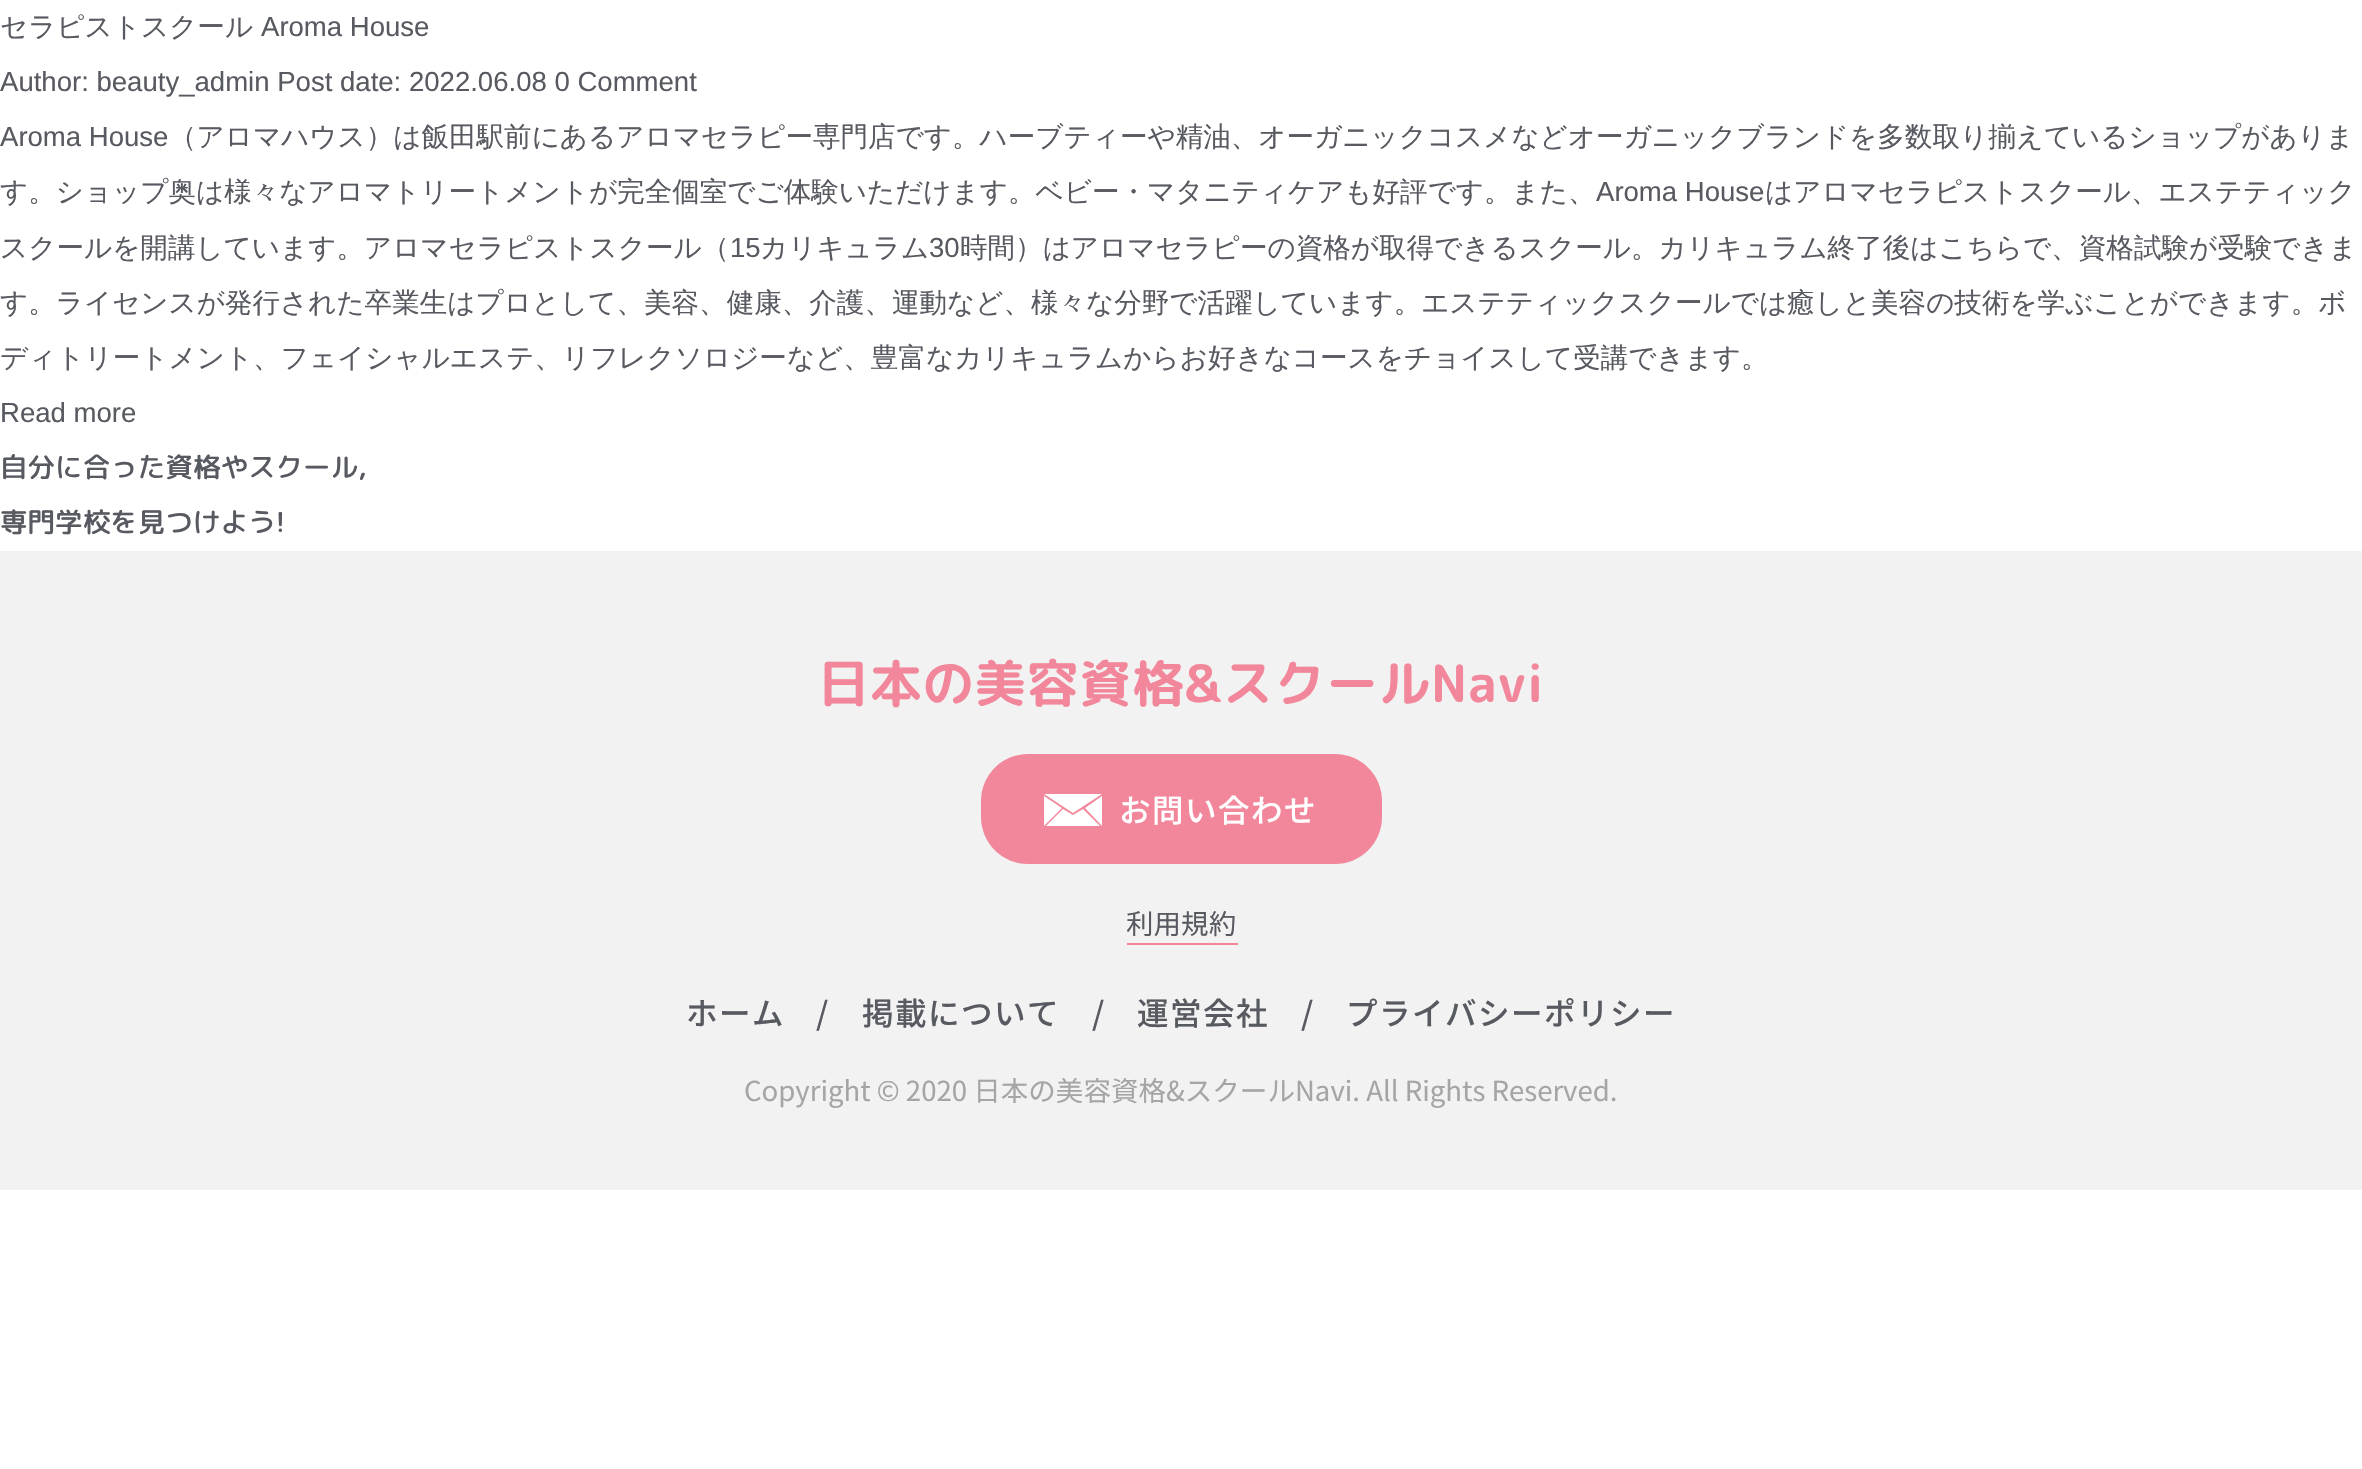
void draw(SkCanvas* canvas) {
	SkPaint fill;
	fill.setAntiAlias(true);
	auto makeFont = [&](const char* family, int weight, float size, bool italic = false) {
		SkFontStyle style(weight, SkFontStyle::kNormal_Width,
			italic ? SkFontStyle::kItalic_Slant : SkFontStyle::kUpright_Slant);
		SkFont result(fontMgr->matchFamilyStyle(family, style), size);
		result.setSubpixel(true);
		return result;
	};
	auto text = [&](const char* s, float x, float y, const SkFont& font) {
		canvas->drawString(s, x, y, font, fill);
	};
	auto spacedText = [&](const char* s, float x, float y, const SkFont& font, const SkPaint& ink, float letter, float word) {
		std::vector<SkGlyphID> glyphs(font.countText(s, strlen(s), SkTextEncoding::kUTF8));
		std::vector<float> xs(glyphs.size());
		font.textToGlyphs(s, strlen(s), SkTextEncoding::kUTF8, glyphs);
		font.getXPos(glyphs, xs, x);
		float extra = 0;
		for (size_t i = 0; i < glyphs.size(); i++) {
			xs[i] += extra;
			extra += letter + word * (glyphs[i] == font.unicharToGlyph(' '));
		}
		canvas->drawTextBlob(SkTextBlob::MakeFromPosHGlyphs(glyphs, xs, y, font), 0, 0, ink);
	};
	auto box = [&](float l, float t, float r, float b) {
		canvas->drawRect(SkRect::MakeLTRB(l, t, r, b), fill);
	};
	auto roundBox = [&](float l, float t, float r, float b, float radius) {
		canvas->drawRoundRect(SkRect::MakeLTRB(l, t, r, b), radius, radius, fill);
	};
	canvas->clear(0xFFFFFFFF);
	fill.setColor(0xFFF2F2F2);
	box(0, 551, 2362, 1190);
	fill.setColor(0xFFF2879B);
	roundBox(981, 754, 1382, 864, 47);
	fill.setColor(0xFFFFFFFF);
	canvas->drawPath(SkPathBuilder(SkPathFillType::kEvenOdd).moveTo(1085, 808).lineTo(1102, 796).lineTo(1102, 826).close().moveTo(1044, 794).lineTo(1102, 794).lineTo(1073, 813).close().moveTo(1044, 826).lineTo(1044, 796).lineTo(1062, 808).close().moveTo(1073, 815).lineTo(1083, 809).lineTo(1100, 826).lineTo(1046, 826).lineTo(1063, 809).close().detach(), fill);
	fill.setColor(0xFFF2879B);
	box(1127, 943, 1238, 945);
	auto font1 = makeFont("WenQuanYi Zen Hei", 500, 27.55f);
	fill.setColor(0xFF585A61);
	text("セラピストスクール", 0, 36, font1);
	auto font2 = makeFont("Liberation Sans", 400, 27.55f);
	text("Aroma House", 261, 36, font2);
	text("Author: beauty_admin Post date: 2022.06.08 0 Comment", 0, 91, font2);
	text("Aroma House", 0, 146, font2);
	text("（アロマハウス）は飯田駅前にあるアロマセラピー専門店です。ハーブティーや精油、オーガニックコスメなどオーガニックブランドを多数取り揃えているショップがありま", 169, 146, font1);
	text("す。ショップ奥は様々なアロマトリートメントが完全個室でご体験いただけます。ベビー・マタニティケアも好評です。また、", 0, 201, font1);
	text("Aroma House", 1596, 201, font2);
	text("はアロマセラピストスクール、エステティック", 1765, 201, font1);
	text("スクールを開講しています。アロマセラピストスクール（", 0, 257, font1);
	text("15", 730, 257, font2);
	text("カリキュラム", 760, 257, font1);
	text("30", 929, 257, font2);
	text("時間）はアロマセラピーの資格が取得できるスクール。カリキュラム終了後はこちらで、資格試験が受験できま", 960, 257, font1);
	text("す。ライセンスが発行された卒業生はプロとして、美容、健康、介護、運動など、様々な分野で活躍しています。エステティックスクールでは癒しと美容の技術を学ぶことができます。ボ", 0, 312, font1);
	text("ディトリートメント、フェイシャルエステ、リフレクソロジーなど、豊富なカリキュラムからお好きなコースをチョイスして受講できます。", 0, 367, font1);
	text("Read more", 0, 422, font2);
	auto font3 = makeFont("Rounded Mplus 1c", 500, 27.55f);
	text("自分に合った資格やスクール,", 0, 477, font3);
	text("専門学校を見つけよう!", 0, 532, font3);
	auto font4 = makeFont("Rounded Mplus 1c Bold", 700, 51.25f);
	fill.setColor(0xFFF2879B);
	spacedText("日本の美容資格&スクールNavi", 818, 702, font4, fill, 1, 0);
	auto font5 = makeFont("Noto Sans CJK JP", 500, 31.5f);
	fill.setColor(0xFFFFFFFF);
	spacedText("お問い合わせ", 1119, 822, font5, fill, 1.5f, 0);
	auto font6 = makeFont("Noto Sans CJK JP", 400, 27.55f);
	fill.setColor(0xFF585A61);
	text("利用規約", 1126, 934, font6);
	spacedText("ホーム", 686, 1025, font5, fill, 1.5f, 0);
	spacedText("/", 816, 1025, font5, fill, 1.5f, 0);
	spacedText("掲載について", 862, 1025, font5, fill, 1.5f, 0);
	spacedText("/", 1092, 1025, font5, fill, 1.5f, 0);
	spacedText("運営会社", 1137, 1025, font5, fill, 1.5f, 0);
	spacedText("/", 1301, 1025, font5, fill, 1.5f, 0);
	spacedText("プライバシーポリシー", 1346, 1025, font5, fill, 1.5f, 0);
	fill.setColor(0xFFA5A5A5);
	text("Copyright © 2020 日本の美容資格&スクールNavi. All Rights Reserved.", 744, 1101, font6);
}
